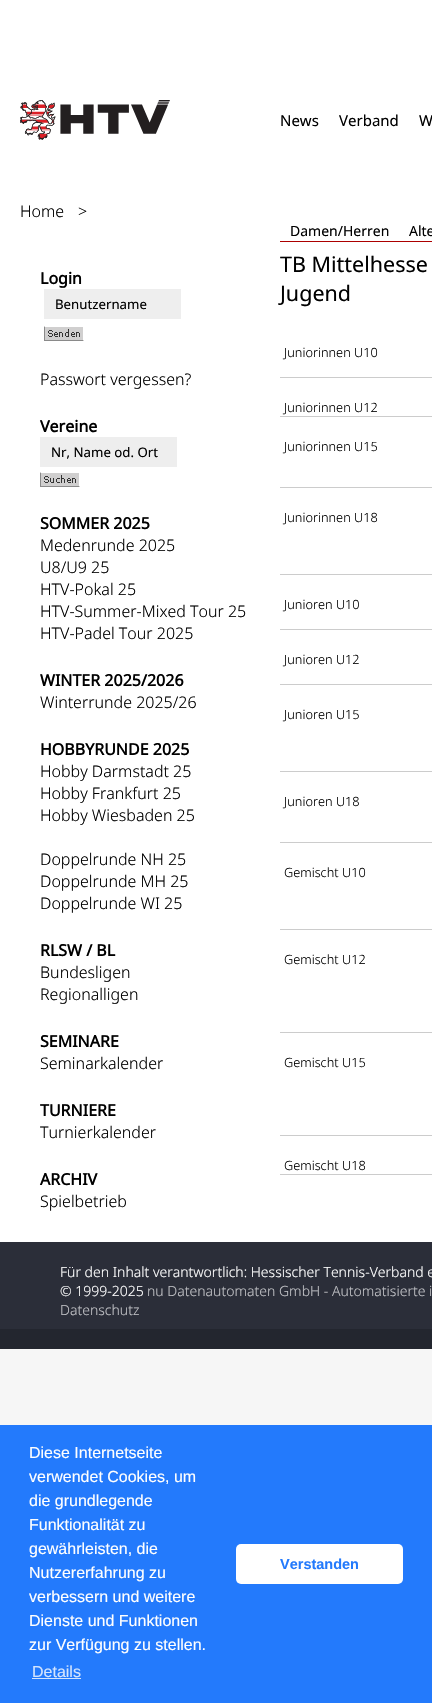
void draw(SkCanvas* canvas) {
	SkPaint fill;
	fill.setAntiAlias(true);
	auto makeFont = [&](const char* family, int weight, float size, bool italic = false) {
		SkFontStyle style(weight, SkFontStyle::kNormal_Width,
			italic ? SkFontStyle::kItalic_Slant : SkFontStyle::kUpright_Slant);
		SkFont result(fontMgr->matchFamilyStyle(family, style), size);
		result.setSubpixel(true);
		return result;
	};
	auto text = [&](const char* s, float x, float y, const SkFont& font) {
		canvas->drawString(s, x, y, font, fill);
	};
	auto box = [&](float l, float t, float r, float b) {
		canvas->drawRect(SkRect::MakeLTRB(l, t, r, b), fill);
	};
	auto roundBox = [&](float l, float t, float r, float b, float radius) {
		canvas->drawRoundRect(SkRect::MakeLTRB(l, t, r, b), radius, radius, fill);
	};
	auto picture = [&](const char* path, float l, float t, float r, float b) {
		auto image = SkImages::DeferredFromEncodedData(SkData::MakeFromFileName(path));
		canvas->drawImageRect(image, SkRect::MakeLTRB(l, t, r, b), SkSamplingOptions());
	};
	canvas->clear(0xFFF6F6F6);
	fill.setColor(0xFFFFFFFF);
	box(0, 0, 432, 1242);
	picture("image0.png", 20, 100, 170, 140);
	fill.setColor(0xFFAC0000);
	box(280, 241, 432, 242);
	fill.setColor(0xFFEEEEEE);
	box(44, 289, 181, 319);
	picture("image1.png", 44, 326, 84, 341);
	box(40, 437, 177, 467);
	picture("image2.png", 40, 472, 80, 487);
	fill.setColor(0xFFCCCCCC);
	box(280, 377, 432, 378);
	box(280, 416, 432, 417);
	box(280, 487, 432, 488);
	box(280, 574, 432, 575);
	box(280, 629, 432, 630);
	box(280, 684, 432, 685);
	box(280, 771, 432, 772);
	box(280, 842, 432, 843);
	box(280, 929, 432, 930);
	box(280, 1032, 432, 1033);
	box(280, 1135, 432, 1136);
	box(280, 1174, 432, 1175);
	fill.setColor(0xFF2B2E39);
	box(0, 1242, 432, 1329);
	fill.setColor(0xFF23262F);
	box(0, 1329, 432, 1349);
	fill.setColor(0xFF237AFC);
	box(0, 1425, 432, 1703);
	fill.setColor(0xFFD3E4FE);
	box(32, 1678, 81, 1679);
	fill.setColor(0xFFFFFFFF);
	roundBox(236, 1544, 403, 1584, 5);
	auto font1 = makeFont("Noto Sans", 400, 15);
	fill.setColor(0xFF000000);
	text("News", 280, 126, font1);
	text("Verband", 339, 126, font1);
	text("W", 419, 126, font1);
	auto font2 = makeFont("Noto Sans", 300, 16);
	text("Home", 20, 217, font2);
	text(">", 78, 217, font2);
	auto font3 = makeFont("Noto Sans", 400, 14);
	text("Damen/Herren", 290, 236, font3);
	text("Alte", 409, 236, font3);
	auto font4 = makeFont("Noto Sans", 700, 16);
	text("Login", 40, 284, font4);
	auto font5 = makeFont("Noto Sans", 400, 13.25f);
	text("Benutzername", 55, 309, font5);
	text("Passwort vergessen?", 40, 385, font2);
	text("Vereine", 40, 432, font4);
	text("Nr, Name od. Ort", 51, 457, font5);
	text("SOMMER 2025", 40, 529, font4);
	text("Medenrunde 2025", 40, 551, font2);
	text("U8/U9 25", 40, 573, font2);
	text("HTV-Pokal 25", 40, 595, font2);
	text("HTV-Summer-Mixed Tour 25", 40, 617, font2);
	text("HTV-Padel Tour 2025", 40, 639, font2);
	text("WINTER 2025/2026", 40, 686, font4);
	text("Winterrunde 2025/26", 40, 708, font2);
	text("HOBBYRUNDE 2025", 40, 755, font4);
	text("Hobby Darmstadt 25", 40, 777, font2);
	text("Hobby Frankfurt 25", 40, 799, font2);
	text("Hobby Wiesbaden 25", 40, 821, font2);
	text("Doppelrunde NH 25", 40, 865, font2);
	text("Doppelrunde MH 25", 40, 887, font2);
	text("Doppelrunde WI 25", 40, 909, font2);
	text("RLSW / BL", 40, 956, font4);
	text("Bundesligen", 40, 978, font2);
	text("Regionalligen", 40, 1000, font2);
	text("SEMINARE", 40, 1047, font4);
	text("Seminarkalender", 40, 1069, font2);
	text("TURNIERE", 40, 1116, font4);
	text("Turnierkalender", 40, 1138, font2);
	text("ARCHIV", 40, 1185, font4);
	text("Spielbetrieb", 40, 1207, font2);
	auto font6 = makeFont("Noto Sans", 400, 21.5f);
	text("TB Mittelhesse", 280, 272, font6);
	text("Jugend", 280, 301, font6);
	auto font7 = makeFont("Noto Sans", 300, 12.75f);
	text("Juniorinnen U10", 284, 357, font7);
	text("Juniorinnen U12", 284, 412, font7);
	text("Juniorinnen U15", 284, 451, font7);
	text("Juniorinnen U18", 284, 522, font7);
	text("Junioren U10", 284, 609, font7);
	text("Junioren U12", 284, 664, font7);
	text("Junioren U15", 284, 719, font7);
	text("Junioren U18", 284, 806, font7);
	text("Gemischt U10", 284, 877, font7);
	text("Gemischt U12", 284, 964, font7);
	text("Gemischt U15", 284, 1067, font7);
	text("Gemischt U18", 284, 1170, font7);
	auto font8 = makeFont("Noto Sans", 300, 14);
	fill.setColor(0xFFFFFFFF);
	text("Für den Inhalt verantwortlich: Hessischer Tennis-Verband e", 60, 1277, font8);
	text("© 1999-2025", 60, 1296, font8);
	fill.setColor(0xFFBFC0C4);
	text("nu Datenautomaten GmbH - Automatisierte i", 147, 1296, font8);
	text("Datenschutz", 60, 1315, font8);
	auto font9 = makeFont("Liberation Sans", 400, 16);
	fill.setColor(0xFFFFFFFF);
	text("Diese Internetseite", 29, 1458, font9);
	text("verwendet Cookies, um", 29, 1482, font9);
	text("die grundlegende", 29, 1506, font9);
	text("Funktionalität zu", 29, 1530, font9);
	text("gewährleisten, die", 29, 1554, font9);
	text("Nutzererfahrung zu", 29, 1578, font9);
	text("verbessern und weitere", 29, 1602, font9);
	text("Dienste und Funktionen", 29, 1626, font9);
	text("zur Verfügung zu stellen.", 29, 1650, font9);
	fill.setColor(0xFFD3E4FE);
	text("Details", 32, 1677, font9);
	auto font10 = makeFont("Liberation Sans", 700, 14.5f);
	fill.setColor(0xFF237AFC);
	text("Verstanden", 280, 1569, font10);
}
